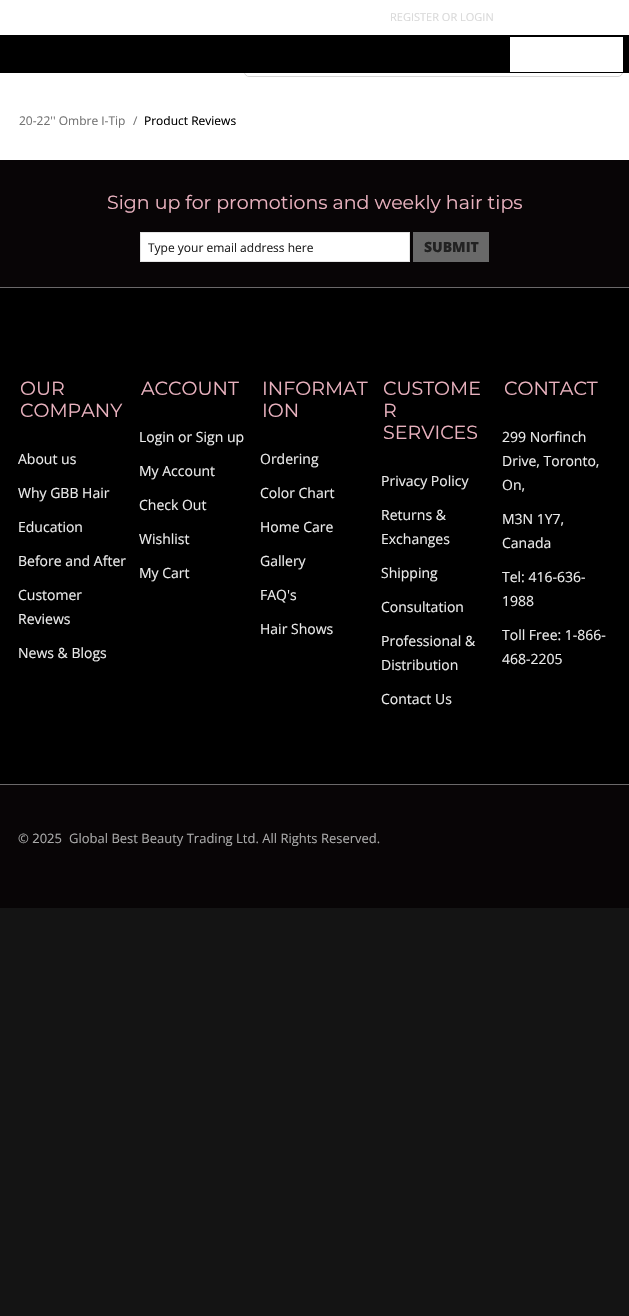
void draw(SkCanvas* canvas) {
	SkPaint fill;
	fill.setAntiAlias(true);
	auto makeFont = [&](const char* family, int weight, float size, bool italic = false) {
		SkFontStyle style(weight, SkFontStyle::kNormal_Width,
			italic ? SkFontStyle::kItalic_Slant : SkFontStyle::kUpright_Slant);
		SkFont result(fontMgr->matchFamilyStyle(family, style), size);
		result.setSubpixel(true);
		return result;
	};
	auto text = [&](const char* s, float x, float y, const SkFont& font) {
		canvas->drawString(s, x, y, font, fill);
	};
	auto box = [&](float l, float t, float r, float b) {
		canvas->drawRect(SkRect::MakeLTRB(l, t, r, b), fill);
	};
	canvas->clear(0xFF141414);
	fill.setColor(0xFFFFFFFF);
	box(0, 0, 629, 160);
	fill.setStyle(SkPaint::kStroke_Style);
	fill.setStrokeWidth(1);
	fill.setColor(0xFFD5D5D5);
	canvas->drawRoundRect(SkRect::MakeLTRB(244.5f, 37.5f, 622.5f, 76.5f), 4.5f, 4.5f, fill);
	fill.setStyle(SkPaint::kFill_Style);
	fill.setColor(0xFFFFFFFF);
	canvas->drawPath(SkPathBuilder().moveTo(249, 38).lineTo(283, 38).lineTo(283, 76).lineTo(249, 76).cubicTo(247, 76, 245, 74, 245, 72).lineTo(245, 42).cubicTo(245, 40, 247, 38, 249, 38).close().detach(), fill);
	fill.setColor(0xFF000000);
	box(0, 35, 629, 73);
	fill.setColor(0xFFFFFFFF);
	box(510, 37, 623, 72);
	fill.setColor(0xFF000000);
	box(0, 288, 629, 784);
	fill.setColor(0xFF080506);
	box(0, 160, 629, 287);
	fill.setColor(0xFF6B696A);
	box(0, 287, 629, 288);
	fill.setColor(0xFFFFFFFF);
	canvas->drawRect(SkRect::MakeLTRB(140.5f, 232.5f, 409.5f, 261.5f), fill);
	fill.setStyle(SkPaint::kStroke_Style);
	fill.setColor(0xFFE5E5E5);
	canvas->drawRect(SkRect::MakeLTRB(140.5f, 232.5f, 409.5f, 261.5f), fill);
	fill.setStyle(SkPaint::kFill_Style);
	fill.setColor(0xFF696969);
	box(413, 232, 489, 262);
	fill.setColor(0xFF080506);
	box(0, 785, 629, 908);
	fill.setColor(0xFF6B696A);
	box(0, 784, 629, 785);
	auto font1 = makeFont("Open Sans", 400, 11);
	fill.setColor(0xFFD9D9D9);
	text("REGISTER OR LOGIN", 390, 21, font1);
	auto font2 = makeFont("Open Sans", 400, 12);
	fill.setColor(0xFF737373);
	text("20-22'' Ombre I-Tip", 19, 125, font2);
	text("/", 133, 125, font2);
	fill.setColor(0xFF000000);
	text("Product Reviews", 144, 125, font2);
	auto font3 = makeFont("Montserrat", 400, 19);
	fill.setColor(0xFFE9B2BF);
	text("Sign up for promotions and weekly hair tips", 107, 209, font3);
	fill.setColor(0xFF222222);
	text("Type your email address here", 148, 252, font2);
	auto font4 = makeFont("Open Sans", 800, 14);
	text("SUBMIT", 424, 252, font4);
	fill.setColor(0xFFE9B2BF);
	text("OUR", 20, 395, font3);
	text("COMPANY", 20, 417, font3);
	auto font5 = makeFont("Open Sans", 400, 14);
	fill.setColor(0xFFEBEBEB);
	text("About us", 18, 464, font5);
	text("Why GBB Hair", 18, 498, font5);
	text("Education", 18, 532, font5);
	text("Before and After", 18, 566, font5);
	text("Customer", 18, 600, font5);
	text("Reviews", 18, 624, font5);
	text("News & Blogs", 18, 658, font5);
	fill.setColor(0xFFE9B2BF);
	text("ACCOUNT", 141, 395, font3);
	fill.setColor(0xFFEBEBEB);
	text("Login or Sign up", 139, 442, font5);
	text("My Account", 139, 476, font5);
	text("Check Out", 139, 510, font5);
	text("Wishlist", 139, 544, font5);
	text("My Cart", 139, 578, font5);
	fill.setColor(0xFFE9B2BF);
	text("INFORMAT", 262, 395, font3);
	text("ION", 262, 417, font3);
	fill.setColor(0xFFEBEBEB);
	text("Ordering", 260, 464, font5);
	text("Color Chart", 260, 498, font5);
	text("Home Care", 260, 532, font5);
	text("Gallery", 260, 566, font5);
	text("FAQ's", 260, 600, font5);
	text("Hair Shows", 260, 634, font5);
	fill.setColor(0xFFE9B2BF);
	text("CUSTOME", 383, 395, font3);
	text("R", 383, 417, font3);
	text("SERVICES", 383, 439, font3);
	fill.setColor(0xFFEBEBEB);
	text("Privacy Policy", 381, 486, font5);
	text("Returns &", 381, 520, font5);
	text("Exchanges", 381, 544, font5);
	text("Shipping", 381, 578, font5);
	text("Consultation", 381, 612, font5);
	text("Professional &", 381, 646, font5);
	text("Distribution", 381, 670, font5);
	text("Contact Us", 381, 704, font5);
	fill.setColor(0xFFE9B2BF);
	text("CONTACT", 504, 395, font3);
	fill.setColor(0xFFEBEBEB);
	text("299 Norfinch", 502, 442, font5);
	text("Drive, Toronto,", 502, 466, font5);
	text("On,", 502, 490, font5);
	text("M3N 1Y7,", 502, 524, font5);
	text("Canada", 502, 548, font5);
	text("Tel: 416-636-", 502, 582, font5);
	text("1988", 502, 606, font5);
	text("Toll Free: 1-866-", 502, 640, font5);
	text("468-2205", 502, 664, font5);
	auto font6 = makeFont("Open Sans", 400, 13);
	fill.setColor(0xFFA9A9A9);
	text("© 2025", 18, 843, font6);
	text("Global Best Beauty Trading Ltd. All Rights Reserved.", 69, 843, font6);
}
